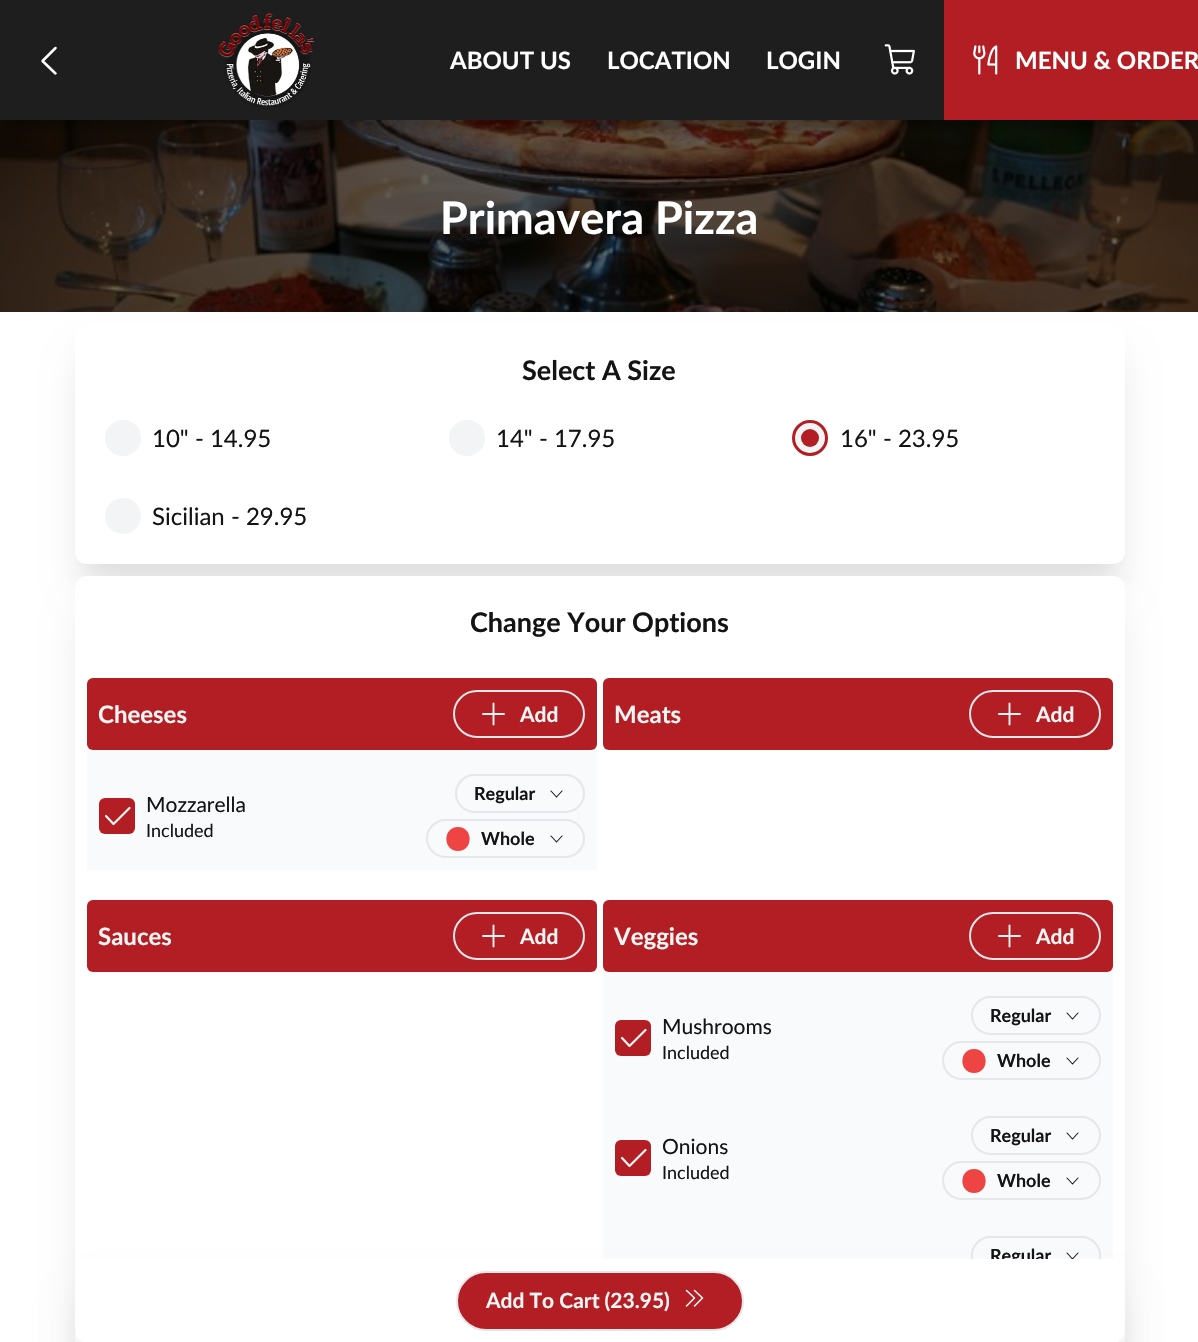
void draw(SkCanvas* canvas) {
	SkPaint fill;
	fill.setAntiAlias(true);
	auto makeFont = [&](const char* family, int weight, float size, bool italic = false) {
		SkFontStyle style(weight, SkFontStyle::kNormal_Width,
			italic ? SkFontStyle::kItalic_Slant : SkFontStyle::kUpright_Slant);
		SkFont result(fontMgr->matchFamilyStyle(family, style), size);
		result.setSubpixel(true);
		return result;
	};
	auto text = [&](const char* s, float x, float y, const SkFont& font) {
		canvas->drawString(s, x, y, font, fill);
	};
	auto box = [&](float l, float t, float r, float b) {
		canvas->drawRect(SkRect::MakeLTRB(l, t, r, b), fill);
	};
	auto roundBox = [&](float l, float t, float r, float b, float radius) {
		canvas->drawRoundRect(SkRect::MakeLTRB(l, t, r, b), radius, radius, fill);
	};
	auto picture = [&](const char* path, float l, float t, float r, float b) {
		auto image = SkImages::DeferredFromEncodedData(SkData::MakeFromFileName(path));
		canvas->drawImageRect(image, SkRect::MakeLTRB(l, t, r, b), SkSamplingOptions());
	};
	canvas->clear(0xFFFFFFFF);
	fill.setColor(0x1A000000);
	fill.setMaskFilter(SkMaskFilter::MakeBlur(kNormal_SkBlurStyle, 19));
	canvas->drawRoundRect(SkRect::MakeLTRB(83, 362, 1118, 587), 5, 5, fill);
	fill.setMaskFilter(nullptr);
	picture("image3.png", 0, 120, 1198, 312);
	fill.setColor(0x40000000);
	fill.setMaskFilter(SkMaskFilter::MakeBlur(kNormal_SkBlurStyle, 4));
	canvas->drawRect(SkRect::MakeLTRB(6, 21, 1193, 129), fill);
	fill.setMaskFilter(nullptr);
	fill.setColor(0xFF1E1E1E);
	box(0, 0, 944, 120);
	fill.setStyle(SkPaint::kStroke_Style);
	fill.setStrokeWidth(2.5f);
	fill.setStrokeCap(SkPaint::kRound_Cap);
	fill.setStrokeJoin(SkPaint::kRound_Join);
	fill.setColor(0xFFFFFFFF);
	canvas->drawPath(SkPathBuilder().moveTo(55.5f, 73.5f).lineTo(42.5f, 61).lineTo(55.5f, 48).detach(), fill);
	picture("image0.png", 218, 13, 315, 107);
	picture("image1.png", 884, 44, 915, 75);
	fill.setStyle(SkPaint::kFill_Style);
	fill.setColor(0xFFB21E23);
	box(944, 0, 1198, 120);
	picture("image2.png", 973, 45, 998, 75);
	fill.setColor(0x0A000000);
	fill.setMaskFilter(SkMaskFilter::MakeBlur(kNormal_SkBlurStyle, 7.5f));
	canvas->drawRoundRect(SkRect::MakeLTRB(83, 347, 1118, 572), 5, 5, fill);
	fill.setMaskFilter(nullptr);
	fill.setColor(0xFFFFFFFF);
	roundBox(75, 324, 1125, 564, 12);
	fill.setColor(0xFFF3F4F6);
	canvas->drawCircle(123, 438, 18, fill);
	canvas->drawCircle(467, 438, 18, fill);
	canvas->drawCircle(810, 438, 16.5f, fill);
	fill.setStyle(SkPaint::kStroke_Style);
	fill.setStrokeWidth(3);
	fill.setStrokeCap(SkPaint::kButt_Cap);
	fill.setStrokeJoin(SkPaint::kMiter_Join);
	fill.setColor(0xFFB21E23);
	canvas->drawCircle(810, 438, 16.5f, fill);
	fill.setStyle(SkPaint::kFill_Style);
	canvas->drawCircle(810, 438, 9, fill);
	fill.setColor(0xFFF3F4F6);
	canvas->drawCircle(123, 516, 18, fill);
	fill.setColor(0x1A000000);
	fill.setMaskFilter(SkMaskFilter::MakeBlur(kNormal_SkBlurStyle, 19));
	canvas->drawRoundRect(SkRect::MakeLTRB(83, 614, 1118, 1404), 5, 5, fill);
	fill.setMaskFilter(nullptr);
	fill.setColor(0xFFFFFFFF);
	canvas->drawPath(SkPathBuilder().moveTo(87, 576).lineTo(1113, 576).cubicTo(1119.5f, 576, 1125, 581.5f, 1125, 588).lineTo(1125, 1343).lineTo(75, 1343).lineTo(75, 588).cubicTo(75, 581.5f, 80.5f, 576, 87, 576).close().detach(), fill);
	fill.setColor(0xFFF9FAFB);
	box(87, 678, 597, 870);
	fill.setColor(0xFFB21E23);
	roundBox(87, 678, 597, 750, 6);
	fill.setStyle(SkPaint::kStroke_Style);
	fill.setStrokeWidth(2);
	fill.setColor(0xFFE5E7EB);
	canvas->drawRoundRect(SkRect::MakeLTRB(454, 691, 584, 737), 23, 23, fill);
	fill.setStrokeWidth(1.9f);
	fill.setStrokeCap(SkPaint::kRound_Cap);
	fill.setStrokeJoin(SkPaint::kRound_Join);
	fill.setColor(0xFFF5F5F5);
	canvas->drawPath(SkPathBuilder().moveTo(483, 714).lineTo(504, 714).moveTo(493.5f, 703.5f).lineTo(493.5f, 724.5f).detach(), fill);
	fill.setStyle(SkPaint::kFill_Style);
	fill.setColor(0xFFB21E23);
	roundBox(99, 798, 135, 834, 6);
	fill.setStyle(SkPaint::kStroke_Style);
	fill.setStrokeWidth(2.2f);
	fill.setColor(0xFFF5F5F5);
	canvas->drawPath(SkPathBuilder().moveTo(129.5f, 808).lineTo(113.5f, 824).lineTo(106, 816).detach(), fill);
	fill.setStrokeWidth(2);
	fill.setStrokeCap(SkPaint::kButt_Cap);
	fill.setStrokeJoin(SkPaint::kMiter_Join);
	fill.setColor(0xFFE5E7EB);
	canvas->drawRoundRect(SkRect::MakeLTRB(456, 775, 584, 812), 18.5f, 18.5f, fill);
	fill.setStrokeWidth(1.1f);
	fill.setStrokeCap(SkPaint::kRound_Cap);
	fill.setStrokeJoin(SkPaint::kRound_Join);
	fill.setColor(0xFF141414);
	canvas->drawPath(SkPathBuilder().moveTo(562, 791).lineTo(556.5f, 797).lineTo(551, 791).detach(), fill);
	fill.setStrokeWidth(2);
	fill.setStrokeCap(SkPaint::kButt_Cap);
	fill.setStrokeJoin(SkPaint::kMiter_Join);
	fill.setColor(0xFFE5E7EB);
	canvas->drawRoundRect(SkRect::MakeLTRB(427, 820, 584, 857), 18.5f, 18.5f, fill);
	fill.setStyle(SkPaint::kFill_Style);
	fill.setColor(0xFFEF4444);
	canvas->drawPath(SkPathBuilder().moveTo(458, 827).cubicTo(473.5f, 827, 473.5f, 851, 458, 851).cubicTo(442.5f, 851, 442.5f, 827, 458, 827).close().detach(), fill);
	fill.setStyle(SkPaint::kStroke_Style);
	fill.setStrokeWidth(1.1f);
	fill.setStrokeCap(SkPaint::kRound_Cap);
	fill.setStrokeJoin(SkPaint::kRound_Join);
	fill.setColor(0xFF141414);
	canvas->drawPath(SkPathBuilder().moveTo(562, 836).lineTo(556.5f, 842).lineTo(551, 836).detach(), fill);
	fill.setStyle(SkPaint::kFill_Style);
	fill.setColor(0xFFF9FAFB);
	box(603, 678, 1113, 750);
	fill.setColor(0xFFB21E23);
	roundBox(603, 678, 1113, 750, 6);
	fill.setStyle(SkPaint::kStroke_Style);
	fill.setStrokeWidth(2);
	fill.setStrokeCap(SkPaint::kButt_Cap);
	fill.setStrokeJoin(SkPaint::kMiter_Join);
	fill.setColor(0xFFE5E7EB);
	canvas->drawRoundRect(SkRect::MakeLTRB(970, 691, 1100, 737), 23, 23, fill);
	fill.setStrokeWidth(1.9f);
	fill.setStrokeCap(SkPaint::kRound_Cap);
	fill.setStrokeJoin(SkPaint::kRound_Join);
	fill.setColor(0xFFF5F5F5);
	canvas->drawPath(SkPathBuilder().moveTo(999, 714).lineTo(1020, 714).moveTo(1009.5f, 703.5f).lineTo(1009.5f, 724.5f).detach(), fill);
	fill.setStyle(SkPaint::kFill_Style);
	fill.setColor(0xFFF9FAFB);
	box(87, 900, 597, 972);
	fill.setColor(0xFFB21E23);
	roundBox(87, 900, 597, 972, 6);
	fill.setStyle(SkPaint::kStroke_Style);
	fill.setStrokeWidth(2);
	fill.setStrokeCap(SkPaint::kButt_Cap);
	fill.setStrokeJoin(SkPaint::kMiter_Join);
	fill.setColor(0xFFE5E7EB);
	canvas->drawRoundRect(SkRect::MakeLTRB(454, 913, 584, 959), 23, 23, fill);
	fill.setStrokeWidth(1.9f);
	fill.setStrokeCap(SkPaint::kRound_Cap);
	fill.setStrokeJoin(SkPaint::kRound_Join);
	fill.setColor(0xFFF5F5F5);
	canvas->drawPath(SkPathBuilder().moveTo(483, 936).lineTo(504, 936).moveTo(493.5f, 925.5f).lineTo(493.5f, 946.5f).detach(), fill);
	fill.setStyle(SkPaint::kFill_Style);
	fill.setColor(0xFFF9FAFB);
	box(603, 900, 1113, 1259);
	fill.setColor(0xFFB21E23);
	roundBox(603, 900, 1113, 972, 6);
	fill.setStyle(SkPaint::kStroke_Style);
	fill.setStrokeWidth(2);
	fill.setStrokeCap(SkPaint::kButt_Cap);
	fill.setStrokeJoin(SkPaint::kMiter_Join);
	fill.setColor(0xFFE5E7EB);
	canvas->drawRoundRect(SkRect::MakeLTRB(970, 913, 1100, 959), 23, 23, fill);
	fill.setStrokeWidth(1.9f);
	fill.setStrokeCap(SkPaint::kRound_Cap);
	fill.setStrokeJoin(SkPaint::kRound_Join);
	fill.setColor(0xFFF5F5F5);
	canvas->drawPath(SkPathBuilder().moveTo(999, 936).lineTo(1020, 936).moveTo(1009.5f, 925.5f).lineTo(1009.5f, 946.5f).detach(), fill);
	fill.setStyle(SkPaint::kFill_Style);
	fill.setColor(0xFFB21E23);
	roundBox(615, 1020, 651, 1056, 6);
	fill.setStyle(SkPaint::kStroke_Style);
	fill.setStrokeWidth(2.2f);
	fill.setColor(0xFFF5F5F5);
	canvas->drawPath(SkPathBuilder().moveTo(645.5f, 1030).lineTo(629.5f, 1046).lineTo(622, 1038).detach(), fill);
	fill.setStrokeWidth(2);
	fill.setStrokeCap(SkPaint::kButt_Cap);
	fill.setStrokeJoin(SkPaint::kMiter_Join);
	fill.setColor(0xFFE5E7EB);
	canvas->drawRoundRect(SkRect::MakeLTRB(972, 997, 1100, 1034), 18.5f, 18.5f, fill);
	fill.setStrokeWidth(1.1f);
	fill.setStrokeCap(SkPaint::kRound_Cap);
	fill.setStrokeJoin(SkPaint::kRound_Join);
	fill.setColor(0xFF141414);
	canvas->drawPath(SkPathBuilder().moveTo(1078, 1013).lineTo(1072.5f, 1019).lineTo(1067, 1013).detach(), fill);
	fill.setStrokeWidth(2);
	fill.setStrokeCap(SkPaint::kButt_Cap);
	fill.setStrokeJoin(SkPaint::kMiter_Join);
	fill.setColor(0xFFE5E7EB);
	canvas->drawRoundRect(SkRect::MakeLTRB(943, 1042, 1100, 1079), 18.5f, 18.5f, fill);
	fill.setStyle(SkPaint::kFill_Style);
	fill.setColor(0xFFEF4444);
	canvas->drawPath(SkPathBuilder().moveTo(974, 1049).cubicTo(989.5f, 1049, 989.5f, 1073, 974, 1073).cubicTo(958.5f, 1073, 958.5f, 1049, 974, 1049).close().detach(), fill);
	fill.setStyle(SkPaint::kStroke_Style);
	fill.setStrokeWidth(1.1f);
	fill.setStrokeCap(SkPaint::kRound_Cap);
	fill.setStrokeJoin(SkPaint::kRound_Join);
	fill.setColor(0xFF141414);
	canvas->drawPath(SkPathBuilder().moveTo(1078, 1058).lineTo(1072.5f, 1064).lineTo(1067, 1058).detach(), fill);
	fill.setStyle(SkPaint::kFill_Style);
	fill.setColor(0xFFB21E23);
	roundBox(615, 1140, 651, 1176, 6);
	fill.setStyle(SkPaint::kStroke_Style);
	fill.setStrokeWidth(2.2f);
	fill.setColor(0xFFF5F5F5);
	canvas->drawPath(SkPathBuilder().moveTo(645.5f, 1150).lineTo(629.5f, 1166).lineTo(622, 1158).detach(), fill);
	fill.setStrokeWidth(2);
	fill.setStrokeCap(SkPaint::kButt_Cap);
	fill.setStrokeJoin(SkPaint::kMiter_Join);
	fill.setColor(0xFFE5E7EB);
	canvas->drawRoundRect(SkRect::MakeLTRB(972, 1117, 1100, 1154), 18.5f, 18.5f, fill);
	fill.setStrokeWidth(1.1f);
	fill.setStrokeCap(SkPaint::kRound_Cap);
	fill.setStrokeJoin(SkPaint::kRound_Join);
	fill.setColor(0xFF141414);
	canvas->drawPath(SkPathBuilder().moveTo(1078, 1133).lineTo(1072.5f, 1139).lineTo(1067, 1133).detach(), fill);
	fill.setStrokeWidth(2);
	fill.setStrokeCap(SkPaint::kButt_Cap);
	fill.setStrokeJoin(SkPaint::kMiter_Join);
	fill.setColor(0xFFE5E7EB);
	canvas->drawRoundRect(SkRect::MakeLTRB(943, 1162, 1100, 1199), 18.5f, 18.5f, fill);
	fill.setStyle(SkPaint::kFill_Style);
	fill.setColor(0xFFEF4444);
	canvas->drawPath(SkPathBuilder().moveTo(974, 1169).cubicTo(989.5f, 1169, 989.5f, 1193, 974, 1193).cubicTo(958.5f, 1193, 958.5f, 1169, 974, 1169).close().detach(), fill);
	fill.setStyle(SkPaint::kStroke_Style);
	fill.setStrokeWidth(1.1f);
	fill.setStrokeCap(SkPaint::kRound_Cap);
	fill.setStrokeJoin(SkPaint::kRound_Join);
	fill.setColor(0xFF141414);
	canvas->drawPath(SkPathBuilder().moveTo(1078, 1178).lineTo(1072.5f, 1184).lineTo(1067, 1178).detach(), fill);
	fill.setStrokeWidth(2);
	fill.setStrokeCap(SkPaint::kButt_Cap);
	fill.setStrokeJoin(SkPaint::kMiter_Join);
	fill.setColor(0xFFE5E7EB);
	canvas->drawRoundRect(SkRect::MakeLTRB(972, 1237, 1100, 1274), 18.5f, 18.5f, fill);
	fill.setStrokeWidth(1.1f);
	fill.setStrokeCap(SkPaint::kRound_Cap);
	fill.setStrokeJoin(SkPaint::kRound_Join);
	fill.setColor(0xFF141414);
	canvas->drawPath(SkPathBuilder().moveTo(1078, 1253).lineTo(1072.5f, 1259).lineTo(1067, 1253).detach(), fill);
	fill.setStyle(SkPaint::kFill_Style);
	fill.setColor(0x1A000000);
	fill.setMaskFilter(SkMaskFilter::MakeBlur(kNormal_SkBlurStyle, 19));
	canvas->drawRoundRect(SkRect::MakeLTRB(83, 1296, 1118, 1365), 5, 5, fill);
	fill.setMaskFilter(nullptr);
	auto font1 = makeFont("Lato", 700, 24);
	fill.setColor(0xFFFFFFFF);
	text("ABOUT US", 450, 69, font1);
	text("LOCATION", 607, 69, font1);
	text("LOGIN", 766, 69, font1);
	text("MENU & ORDER", 1015, 69, font1);
	auto font2 = makeFont("Lato", 700, 45);
	text("Primavera Pizza", 440, 234, font2);
	auto font3 = makeFont("Lato", 700, 27);
	fill.setColor(0xFF141414);
	text("Select A Size", 522, 380, font3);
	auto font4 = makeFont("Lato", 400, 24);
	text("10\" - 14.95", 152, 447, font4);
	text("14\" - 17.95", 496, 447, font4);
	text("16\" - 23.95", 840, 447, font4);
	text("Sicilian - 29.95", 152, 525, font4);
	text("Change Your Options", 470, 632, font3);
	fill.setColor(0xFFF5F5F5);
	text("Cheeses", 98, 723, font1);
	auto font5 = makeFont("Lato", 700, 21);
	text("Add", 520, 722, font5);
	auto font6 = makeFont("Lato", 400, 21);
	fill.setColor(0xFF141414);
	text("Mozzarella", 146, 812, font6);
	auto font7 = makeFont("Lato", 400, 18);
	text("Included", 146, 837, font7);
	auto font8 = makeFont("Lato", 700, 18);
	text("Regular", 474, 800, font8);
	text("Whole", 481, 845, font8);
	fill.setColor(0xFFF5F5F5);
	text("Meats", 614, 723, font1);
	text("Add", 1036, 722, font5);
	text("Sauces", 98, 945, font1);
	text("Add", 520, 944, font5);
	text("Veggies", 614, 945, font1);
	text("Add", 1036, 944, font5);
	fill.setColor(0xFF141414);
	text("Mushrooms", 662, 1034, font6);
	text("Included", 662, 1059, font7);
	text("Regular", 990, 1022, font8);
	text("Whole", 997, 1067, font8);
	text("Onions", 662, 1154, font6);
	text("Included", 662, 1179, font7);
	text("Regular", 990, 1142, font8);
	text("Whole", 997, 1187, font8);
	text("Regular", 990, 1262, font8);
	fill.setColor(0xFFFFFFFF);
	roundBox(75, 1259, 1125, 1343, 12);
	fill.setColor(0xFFB21E23);
	canvas->drawRoundRect(SkRect::MakeLTRB(457, 1272, 743, 1330), 29, 29, fill);
	fill.setStyle(SkPaint::kStroke_Style);
	fill.setStrokeWidth(2);
	fill.setStrokeCap(SkPaint::kButt_Cap);
	fill.setStrokeJoin(SkPaint::kMiter_Join);
	fill.setColor(0xFFE5E7EB);
	canvas->drawRoundRect(SkRect::MakeLTRB(457, 1272, 743, 1330), 29, 29, fill);
	fill.setStyle(SkPaint::kFill_Style);
	fill.setColor(0xFFF5F5F5);
	text("Add To Cart (23.95)", 486, 1308, font5);
	fill.setStyle(SkPaint::kStroke_Style);
	fill.setStrokeWidth(1.6f);
	fill.setStrokeCap(SkPaint::kRound_Cap);
	fill.setStrokeJoin(SkPaint::kRound_Join);
	canvas->drawPath(SkPathBuilder().moveTo(686.5f, 1290.5f).lineTo(694.5f, 1298).lineTo(686.5f, 1306).moveTo(694.5f, 1290.5f).lineTo(702.5f, 1298).lineTo(694.5f, 1306).detach(), fill);
}
